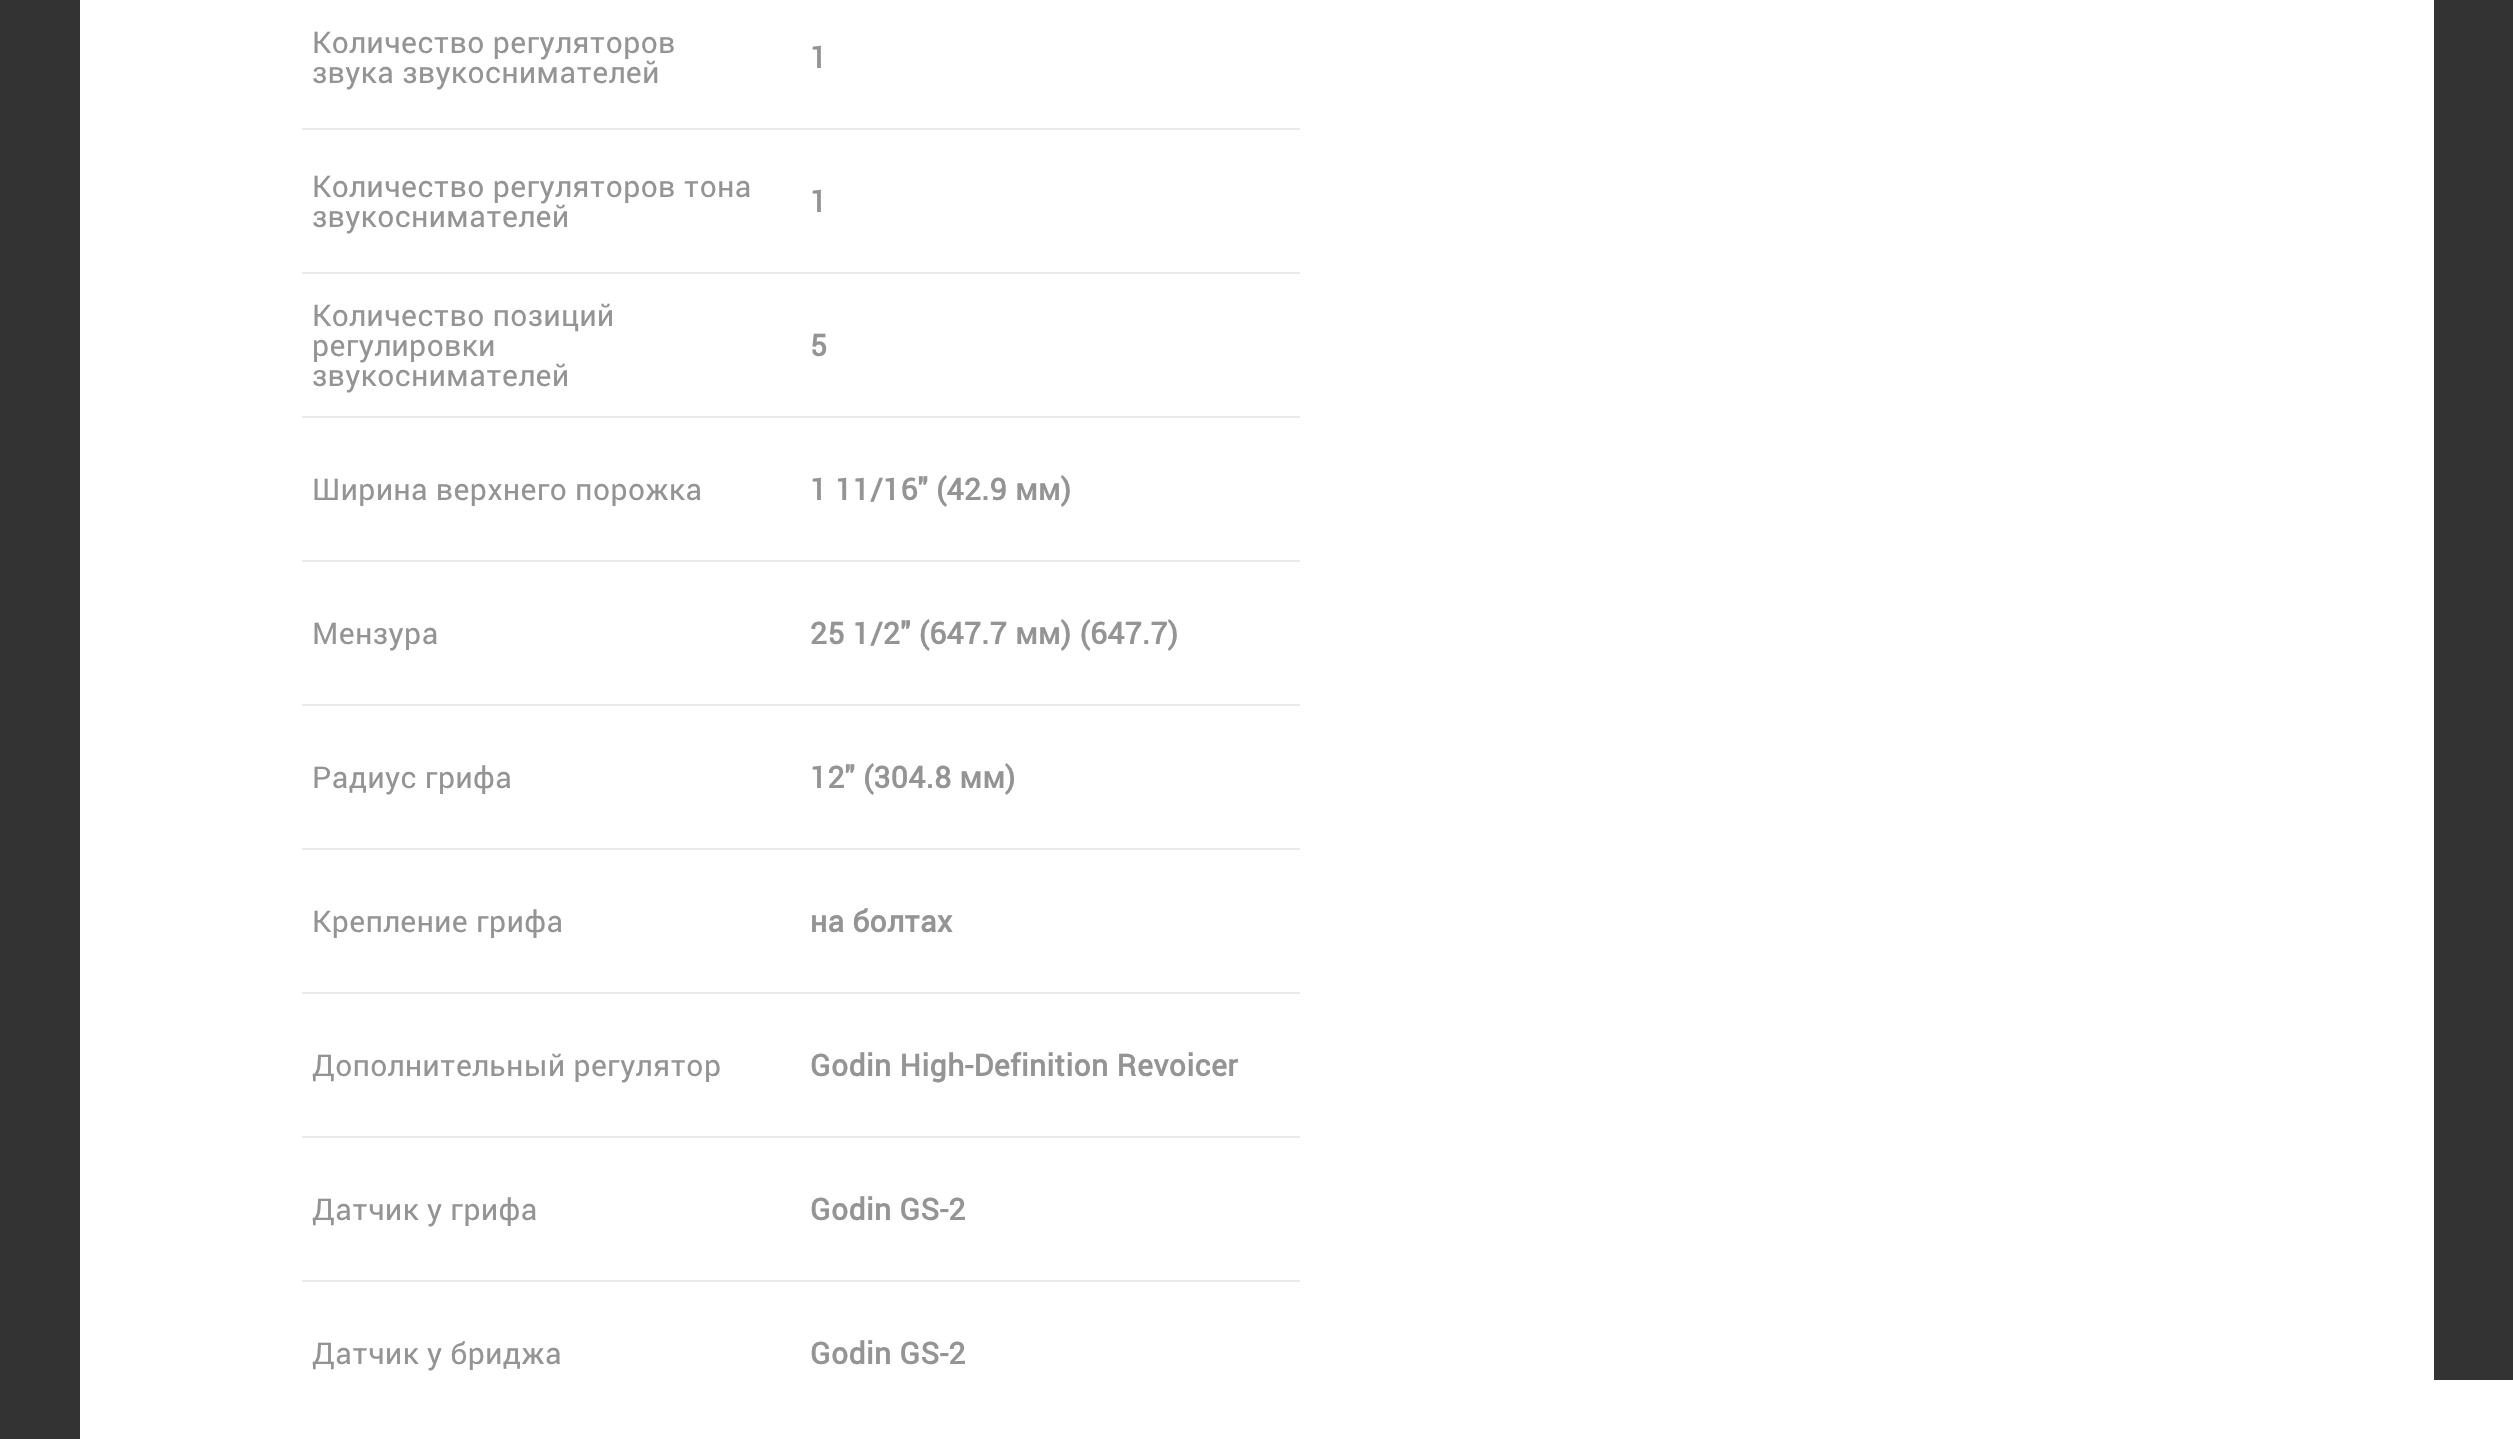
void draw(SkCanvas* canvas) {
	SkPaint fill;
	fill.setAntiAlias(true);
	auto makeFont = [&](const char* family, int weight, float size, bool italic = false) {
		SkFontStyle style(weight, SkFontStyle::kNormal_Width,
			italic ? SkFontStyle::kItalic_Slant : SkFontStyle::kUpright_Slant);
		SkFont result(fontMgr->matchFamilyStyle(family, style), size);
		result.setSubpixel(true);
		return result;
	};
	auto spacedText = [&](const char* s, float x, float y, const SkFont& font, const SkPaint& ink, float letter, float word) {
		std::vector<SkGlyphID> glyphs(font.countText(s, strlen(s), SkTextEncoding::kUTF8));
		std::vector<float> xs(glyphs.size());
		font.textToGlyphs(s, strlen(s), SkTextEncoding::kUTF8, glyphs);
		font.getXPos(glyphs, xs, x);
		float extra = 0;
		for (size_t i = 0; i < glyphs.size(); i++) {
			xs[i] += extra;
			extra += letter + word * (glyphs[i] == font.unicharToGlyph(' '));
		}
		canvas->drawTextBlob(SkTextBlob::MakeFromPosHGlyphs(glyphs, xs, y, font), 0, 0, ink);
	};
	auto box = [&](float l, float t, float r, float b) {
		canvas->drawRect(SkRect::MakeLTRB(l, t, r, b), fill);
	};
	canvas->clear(0xFFFFFFFF);
	fill.setColor(0xFF333333);
	box(2434, 0, 2513, 1380);
	box(0, 0, 80, 1439);
	fill.setColor(0xFFEAEAEA);
	box(300, 128, 1300, 130);
	fill.setColor(0xFFFFFFFF);
	box(300, 128, 302, 130);
	fill.setColor(0xFFEAEAEA);
	box(300, 272, 1300, 274);
	fill.setColor(0xFFFFFFFF);
	box(300, 272, 302, 274);
	fill.setColor(0xFFEAEAEA);
	box(300, 416, 1300, 418);
	fill.setColor(0xFFFFFFFF);
	box(300, 416, 302, 418);
	fill.setColor(0xFFEAEAEA);
	box(300, 560, 1300, 562);
	fill.setColor(0xFFFFFFFF);
	box(300, 560, 302, 562);
	fill.setColor(0xFFEAEAEA);
	box(300, 704, 1300, 706);
	fill.setColor(0xFFFFFFFF);
	box(300, 704, 302, 706);
	fill.setColor(0xFFEAEAEA);
	box(300, 848, 1300, 850);
	fill.setColor(0xFFFFFFFF);
	box(300, 848, 302, 850);
	fill.setColor(0xFFEAEAEA);
	box(300, 992, 1300, 994);
	fill.setColor(0xFFFFFFFF);
	box(300, 992, 302, 994);
	fill.setColor(0xFFEAEAEA);
	box(300, 1136, 1300, 1138);
	fill.setColor(0xFFFFFFFF);
	box(300, 1136, 302, 1138);
	fill.setColor(0xFFEAEAEA);
	box(300, 1280, 1300, 1282);
	fill.setColor(0xFFFFFFFF);
	box(300, 1280, 302, 1282);
	auto font1 = makeFont("Roboto", 400, 30);
	fill.setColor(0xFF949494);
	spacedText("Количество регуляторов", 312, 53, font1, fill, 0.5f, 0);
	spacedText("звука звукоснимателей", 312, 83, font1, fill, 0.5f, 0);
	auto font2 = makeFont("Roboto", 700, 30);
	spacedText("1", 810, 68, font2, fill, 0.5f, 0);
	spacedText("Количество регуляторов тона", 312, 197, font1, fill, 0.5f, 0);
	spacedText("звукоснимателей", 312, 227, font1, fill, 0.5f, 0);
	spacedText("1", 810, 212, font2, fill, 0.5f, 0);
	spacedText("Количество позиций", 312, 326, font1, fill, 0.5f, 0);
	spacedText("регулировки", 312, 356, font1, fill, 0.5f, 0);
	spacedText("звукоснимателей", 312, 386, font1, fill, 0.5f, 0);
	spacedText("5", 810, 356, font2, fill, 0.5f, 0);
	spacedText("Ширина верхнего порожка", 312, 500, font1, fill, 0.5f, 0);
	spacedText("1 11/16\" (42.9 мм)", 810, 500, font2, fill, 0.5f, 0);
	spacedText("Мензура", 312, 644, font1, fill, 0.5f, 0);
	spacedText("25 1/2\" (647.7 мм) (647.7)", 810, 644, font2, fill, 0.5f, 0);
	spacedText("Радиус грифа", 312, 788, font1, fill, 0.5f, 0);
	spacedText("12\" (304.8 мм)", 810, 788, font2, fill, 0.5f, 0);
	spacedText("Крепление грифа", 312, 932, font1, fill, 0.5f, 0);
	spacedText("на болтах", 810, 932, font2, fill, 0.5f, 0);
	spacedText("Дополнительный регулятор", 312, 1076, font1, fill, 0.5f, 0);
	spacedText("Godin High-Definition Revoicer", 810, 1076, font2, fill, 0.5f, 0);
	spacedText("Датчик у грифа", 312, 1220, font1, fill, 0.5f, 0);
	spacedText("Godin GS-2", 810, 1220, font2, fill, 0.5f, 0);
	spacedText("Датчик у бриджа", 312, 1364, font1, fill, 0.5f, 0);
	spacedText("Godin GS-2", 810, 1364, font2, fill, 0.5f, 0);
}
